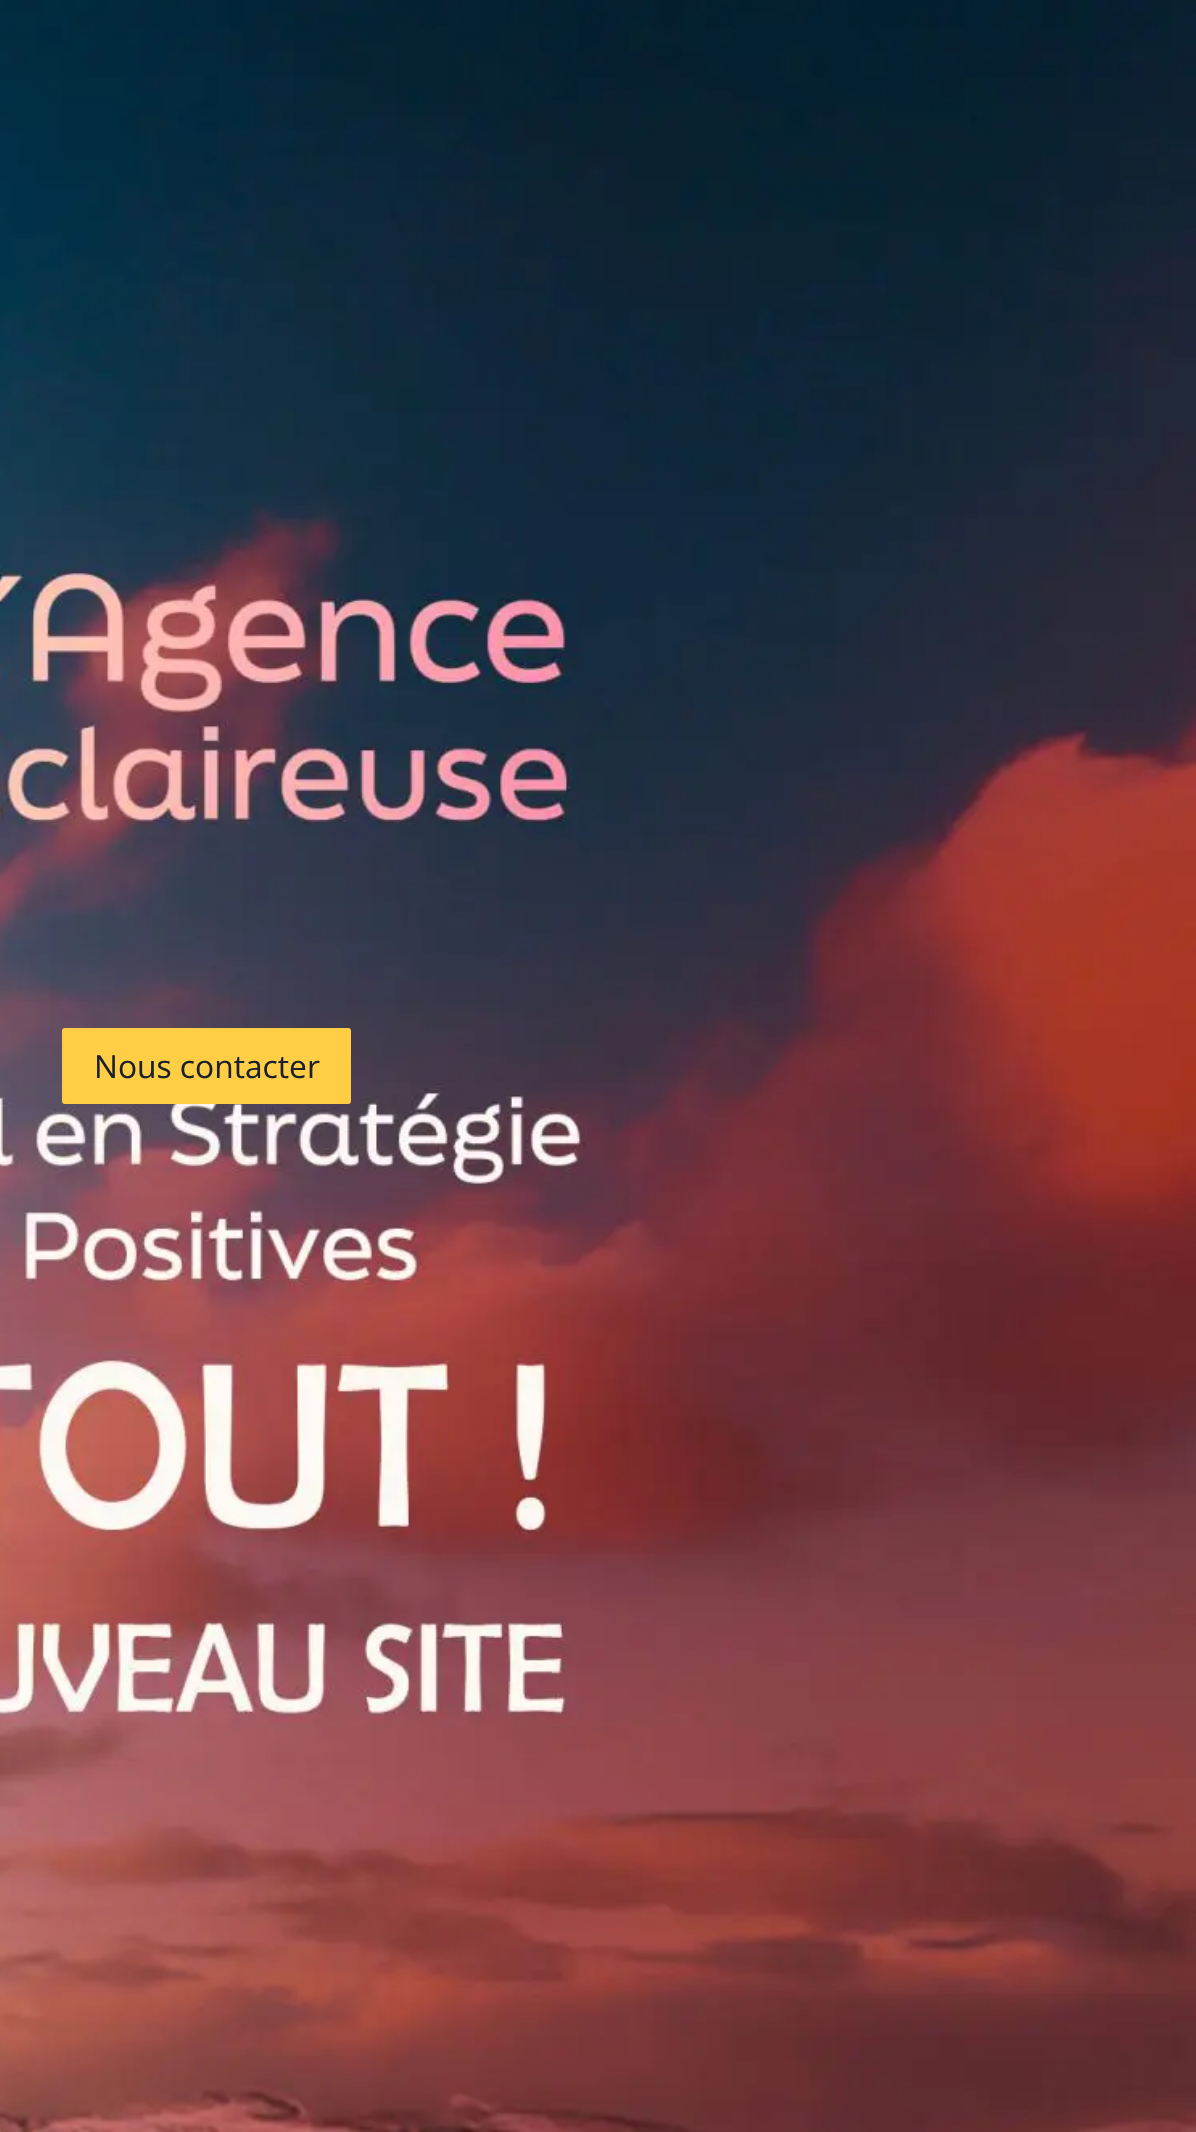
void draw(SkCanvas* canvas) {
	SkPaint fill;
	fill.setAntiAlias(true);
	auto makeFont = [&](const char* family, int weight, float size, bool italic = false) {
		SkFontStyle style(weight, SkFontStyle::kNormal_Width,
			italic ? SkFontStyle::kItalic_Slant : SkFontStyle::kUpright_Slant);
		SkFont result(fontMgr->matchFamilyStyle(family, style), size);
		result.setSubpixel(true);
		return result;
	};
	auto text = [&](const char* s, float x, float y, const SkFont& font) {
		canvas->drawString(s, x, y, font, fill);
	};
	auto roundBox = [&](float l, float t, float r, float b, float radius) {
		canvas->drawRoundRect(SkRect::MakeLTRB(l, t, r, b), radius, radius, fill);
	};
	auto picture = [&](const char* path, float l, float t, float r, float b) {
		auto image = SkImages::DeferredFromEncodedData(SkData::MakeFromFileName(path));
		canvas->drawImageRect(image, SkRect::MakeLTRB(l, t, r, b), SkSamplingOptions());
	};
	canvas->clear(0xFFFFFFFF);
	picture("image0.png", 0, 0, 1196, 2132);
	fill.setColor(0xFFFFCE44);
	roundBox(62, 1028, 351, 1104, 3);
	auto font1 = makeFont("Open Sans", 400, 31.75f);
	fill.setColor(0xFF1A202C);
	text("Nous contacter", 94, 1078, font1);
}
